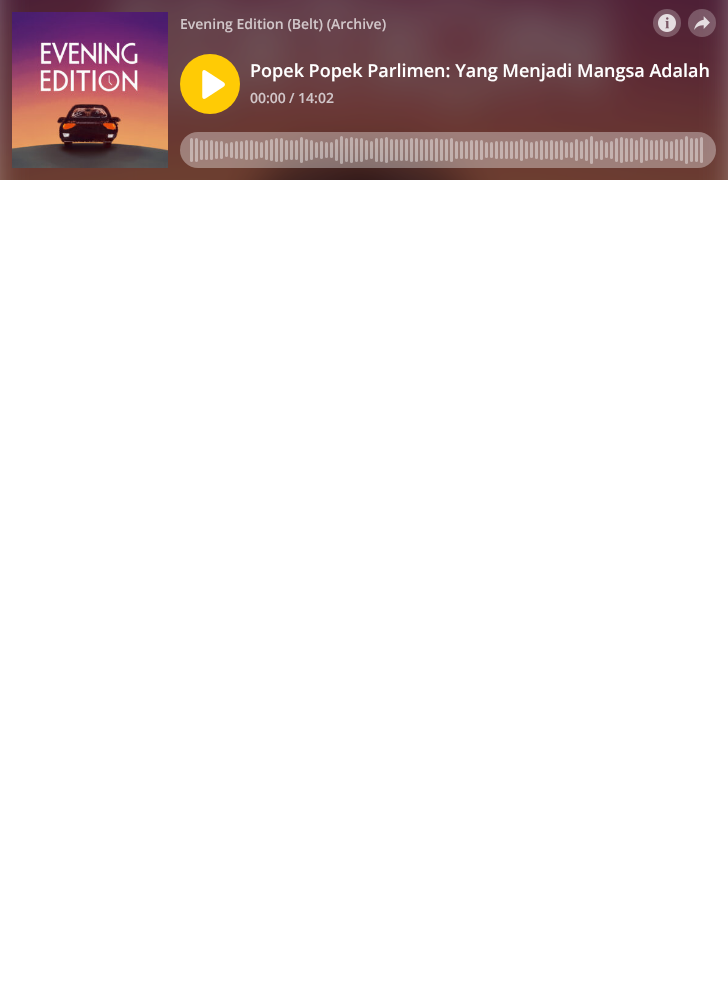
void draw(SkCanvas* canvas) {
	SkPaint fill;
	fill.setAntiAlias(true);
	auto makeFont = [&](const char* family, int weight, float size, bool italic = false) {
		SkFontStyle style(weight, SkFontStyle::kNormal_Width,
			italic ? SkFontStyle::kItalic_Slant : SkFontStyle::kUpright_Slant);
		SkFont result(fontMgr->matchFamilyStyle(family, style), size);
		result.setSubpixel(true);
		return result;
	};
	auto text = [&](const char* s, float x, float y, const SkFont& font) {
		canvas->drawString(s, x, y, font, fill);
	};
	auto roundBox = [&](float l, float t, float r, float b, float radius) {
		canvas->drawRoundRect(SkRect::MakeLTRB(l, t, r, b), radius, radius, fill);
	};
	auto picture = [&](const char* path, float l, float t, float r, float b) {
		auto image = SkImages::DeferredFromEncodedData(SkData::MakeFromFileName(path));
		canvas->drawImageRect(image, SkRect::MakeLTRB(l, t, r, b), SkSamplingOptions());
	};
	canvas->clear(0xFFFFFFFF);
	picture("image0.png", 0, 0, 728, 180);
	picture("image1.png", 12, 12, 168, 168);
	fill.setColor(0x3DFFFFFF);
	canvas->drawCircle(667, 23, 14, fill);
	picture("image2.png", 658, 14, 676, 32);
	canvas->drawCircle(702, 23, 14, fill);
	picture("image3.png", 694, 16, 710, 30);
	fill.setColor(0xFFFFCB05);
	canvas->drawCircle(210, 84, 30, fill);
	picture("image4.png", 202, 70, 225, 99);
	fill.setColor(0x59FFFFFF);
	roundBox(180, 132, 716, 168, 18);
	picture("image5.png", 190, 136, 703, 164);
	auto font1 = makeFont("Open Sans", 600, 14);
	fill.setColor(0xFFD1C6C9);
	text("Evening Edition (Belt) (Archive)", 180, 29, font1);
	auto font2 = makeFont("Open Sans", 600, 18);
	fill.setColor(0xFFFFFFFF);
	text("Popek Popek Parlimen: Yang Menjadi Mangsa Adalah", 250, 77, font2);
	fill.setColor(0xFFD1C6C9);
	text("00:00", 250, 103, font1);
	text("/ 14:02", 289, 103, font1);
}
